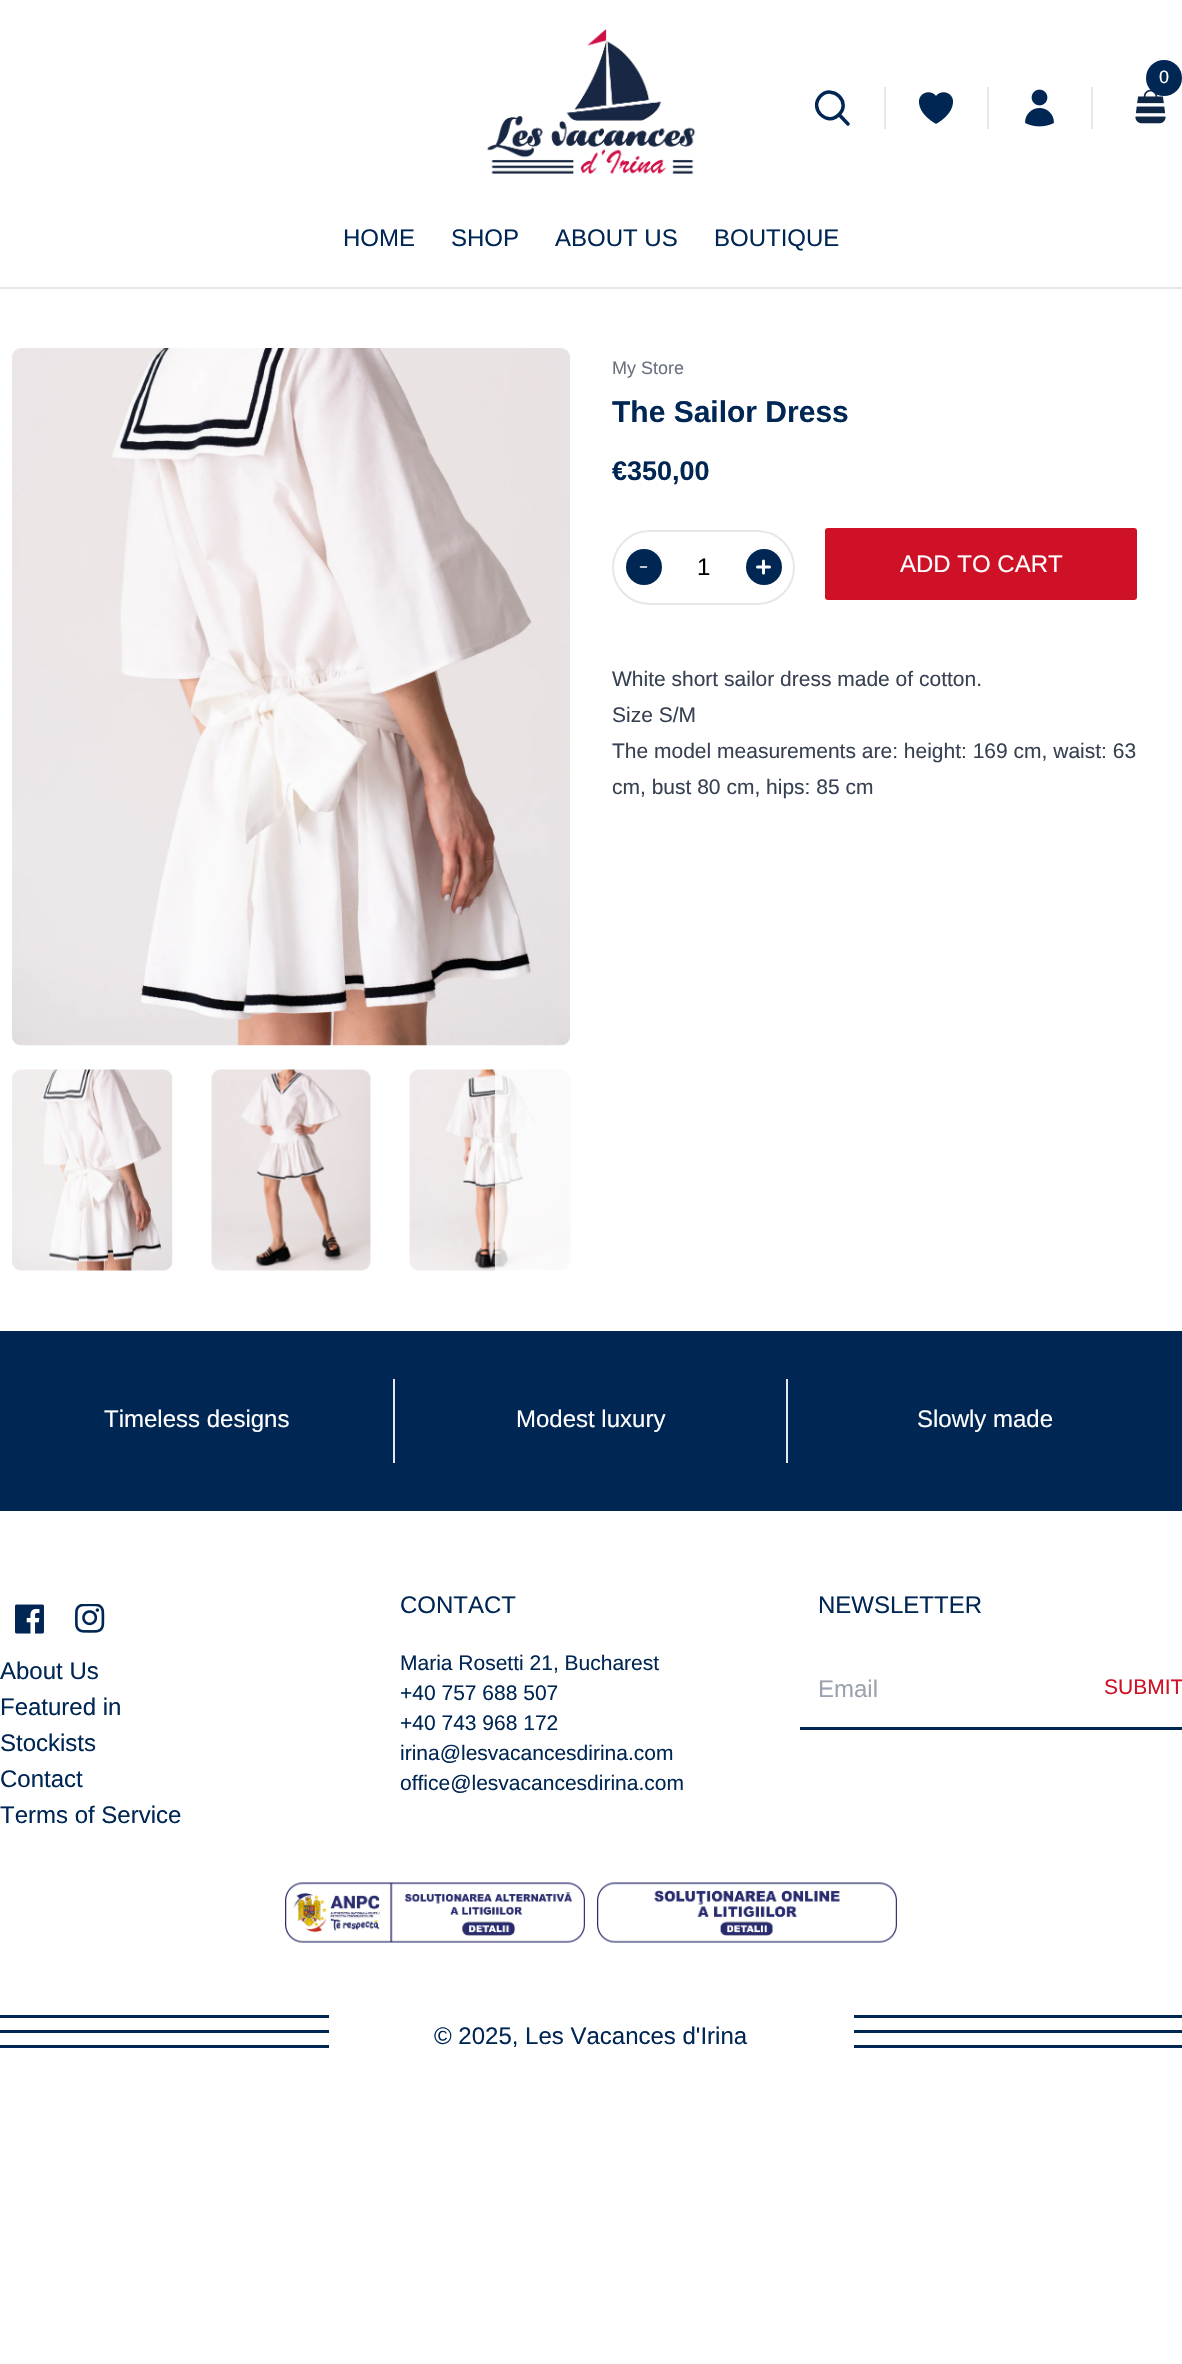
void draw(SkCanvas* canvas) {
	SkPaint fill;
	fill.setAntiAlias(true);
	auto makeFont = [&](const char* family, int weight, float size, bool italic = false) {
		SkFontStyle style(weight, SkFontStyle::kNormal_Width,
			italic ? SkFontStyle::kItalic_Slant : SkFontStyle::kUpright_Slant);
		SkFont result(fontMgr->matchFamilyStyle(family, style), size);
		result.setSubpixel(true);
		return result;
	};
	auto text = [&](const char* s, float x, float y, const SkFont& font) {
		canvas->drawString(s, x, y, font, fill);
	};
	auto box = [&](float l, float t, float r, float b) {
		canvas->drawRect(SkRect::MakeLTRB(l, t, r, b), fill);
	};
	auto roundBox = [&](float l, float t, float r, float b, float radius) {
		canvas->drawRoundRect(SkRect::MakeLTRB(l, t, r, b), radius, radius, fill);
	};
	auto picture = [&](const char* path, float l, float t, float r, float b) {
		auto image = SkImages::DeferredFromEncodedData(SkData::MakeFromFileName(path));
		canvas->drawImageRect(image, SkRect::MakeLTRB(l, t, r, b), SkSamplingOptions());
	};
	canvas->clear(0xFFFFFFFF);
	picture("image0.png", 487, 29, 696, 174);
	picture("image1.png", 1135, 89, 1166, 124);
	fill.setColor(0xFF002654);
	canvas->drawCircle(1164, 78, 18, fill);
	fill.setStyle(SkPaint::kStroke_Style);
	fill.setStrokeWidth(3.5f);
	fill.setStrokeCap(SkPaint::kRound_Cap);
	fill.setStrokeJoin(SkPaint::kRound_Join);
	canvas->drawPath(SkPathBuilder().moveTo(848, 124).lineTo(839, 114.5f).moveTo(839, 114.5f).cubicTo(851.5f, 102.5f, 833, 84, 820.5f, 96).cubicTo(808.5f, 108.5f, 827, 127, 839, 114.5f).close().detach(), fill);
	fill.setStyle(SkPaint::kFill_Style);
	fill.setColor(0xFFE5E7EB);
	box(884, 87, 886, 129);
	picture("image2.png", 918, 92, 954, 124);
	box(1091, 87, 1093, 129);
	box(987, 87, 989, 129);
	picture("image3.png", 1025, 89, 1054, 127);
	box(0, 287, 1182, 289);
	picture("image4.png", 12, 348, 570, 1046);
	picture("image5.png", 12, 1069, 173, 1271);
	picture("image6.png", 211, 1069, 371, 1271);
	picture("image7.png", 409, 1069, 571, 1271);
	fill.setColor(0x47FFFFFF);
	box(12, 1069, 87, 1271);
	fill.setColor(0xCCFFFFFF);
	box(495, 1069, 570, 1271);
	fill.setStyle(SkPaint::kStroke_Style);
	fill.setStrokeWidth(2);
	fill.setStrokeCap(SkPaint::kButt_Cap);
	fill.setStrokeJoin(SkPaint::kMiter_Join);
	fill.setColor(0xFFE5E7EB);
	canvas->drawRoundRect(SkRect::MakeLTRB(613, 531, 794, 604), 36.5f, 36.5f, fill);
	fill.setStyle(SkPaint::kFill_Style);
	fill.setColor(0xFF002654);
	canvas->drawCircle(644, 567, 18, fill);
	fill.setStyle(SkPaint::kStroke_Style);
	fill.setStrokeWidth(1.5f);
	fill.setStrokeCap(SkPaint::kRound_Cap);
	fill.setStrokeJoin(SkPaint::kRound_Join);
	fill.setColor(0xFFFFFFFF);
	canvas->drawPath(SkPathBuilder().moveTo(646.5f, 567).lineTo(640.5f, 567).detach(), fill);
	fill.setStyle(SkPaint::kFill_Style);
	fill.setColor(0xFF002654);
	canvas->drawCircle(764, 567, 18, fill);
	fill.setStyle(SkPaint::kStroke_Style);
	fill.setStrokeWidth(3);
	fill.setColor(0xFFFFFFFF);
	canvas->drawPath(SkPathBuilder().moveTo(763.5f, 561).lineTo(763.5f, 573).moveTo(769.5f, 567).lineTo(757.5f, 567).detach(), fill);
	fill.setStyle(SkPaint::kFill_Style);
	fill.setColor(0xFFCE1126);
	roundBox(825, 528, 1137, 600, 3);
	fill.setColor(0xFF002654);
	box(0, 1331, 1182, 1511);
	fill.setColor(0xFFE5E7EB);
	box(393, 1379, 395, 1463);
	box(786, 1379, 788, 1463);
	fill.setColor(0xFF002654);
	box(800, 1727, 1182, 1730);
	picture("image8.png", 15, 1604, 44, 1634);
	picture("image9.png", 75, 1604, 105, 1633);
	picture("image10.png", 285, 1882, 585, 1943);
	picture("image11.png", 597, 1882, 897, 1943);
	box(0, 2015, 1182, 2018);
	box(0, 2030, 1182, 2033);
	box(0, 2045, 1182, 2048);
	fill.setColor(0xFFFFFFFF);
	box(329, 2015, 854, 2048);
	auto font1 = makeFont("Liberation Sans", 400, 18);
	text("0", 1159, 83, font1);
	auto font2 = makeFont("Liberation Sans", 400, 24);
	fill.setColor(0xFF002654);
	text("HOME", 343, 246, font2);
	text("SHOP", 451, 246, font2);
	text("ABOUT US", 555, 246, font2);
	text("BOUTIQUE", 714, 246, font2);
	fill.setColor(0xFF6B7280);
	text("My Store", 612, 374, font1);
	auto font3 = makeFont("Liberation Sans", 700, 30);
	fill.setColor(0xFF002654);
	text("The Sailor Dress", 612, 422, font3);
	auto font4 = makeFont("Liberation Sans", 700, 27);
	text("€350,00", 612, 480, font4);
	fill.setColor(0xFF000000);
	text("1", 697, 575, font2);
	fill.setColor(0xFFFFFFFF);
	text("ADD TO CART", 900, 572, font2);
	auto font5 = makeFont("Liberation Sans", 400, 21);
	fill.setColor(0xFF374151);
	text("White short sailor dress made of cotton.", 612, 686, font5);
	text("Size S/M", 612, 722, font5);
	text("The model measurements are: height: 169 cm, waist: 63", 612, 758, font5);
	text("cm, bust 80 cm, hips: 85 cm", 612, 794, font5);
	fill.setColor(0xFFFFFFFF);
	text("Timeless designs", 104, 1427, font2);
	text("Modest luxury", 516, 1427, font2);
	text("Slowly made", 917, 1427, font2);
	fill.setColor(0xFF002654);
	text("CONTACT", 400, 1613, font2);
	text("Maria Rosetti 21, Bucharest", 400, 1670, font5);
	text("+40 757 688 507", 400, 1700, font5);
	text("+40 743 968 172", 400, 1730, font5);
	text("irina@lesvacancesdirina.com", 400, 1760, font5);
	text("office@lesvacancesdirina.com", 400, 1790, font5);
	text("NEWSLETTER", 818, 1613, font2);
	fill.setColor(0xFF9CA3AF);
	text("Email", 818, 1697, font2);
	fill.setColor(0xFFCE1126);
	text("SUBMIT", 1104, 1694, font5);
	fill.setColor(0xFF002654);
	text("About Us", 0, 1679, font2);
	text("Featured in", 0, 1715, font2);
	text("Stockists", 0, 1751, font2);
	text("Contact", 0, 1787, font2);
	text("Terms of Service", 0, 1823, font2);
	text("© 2025, Les Vacances d'Irina", 434, 2044, font2);
}
